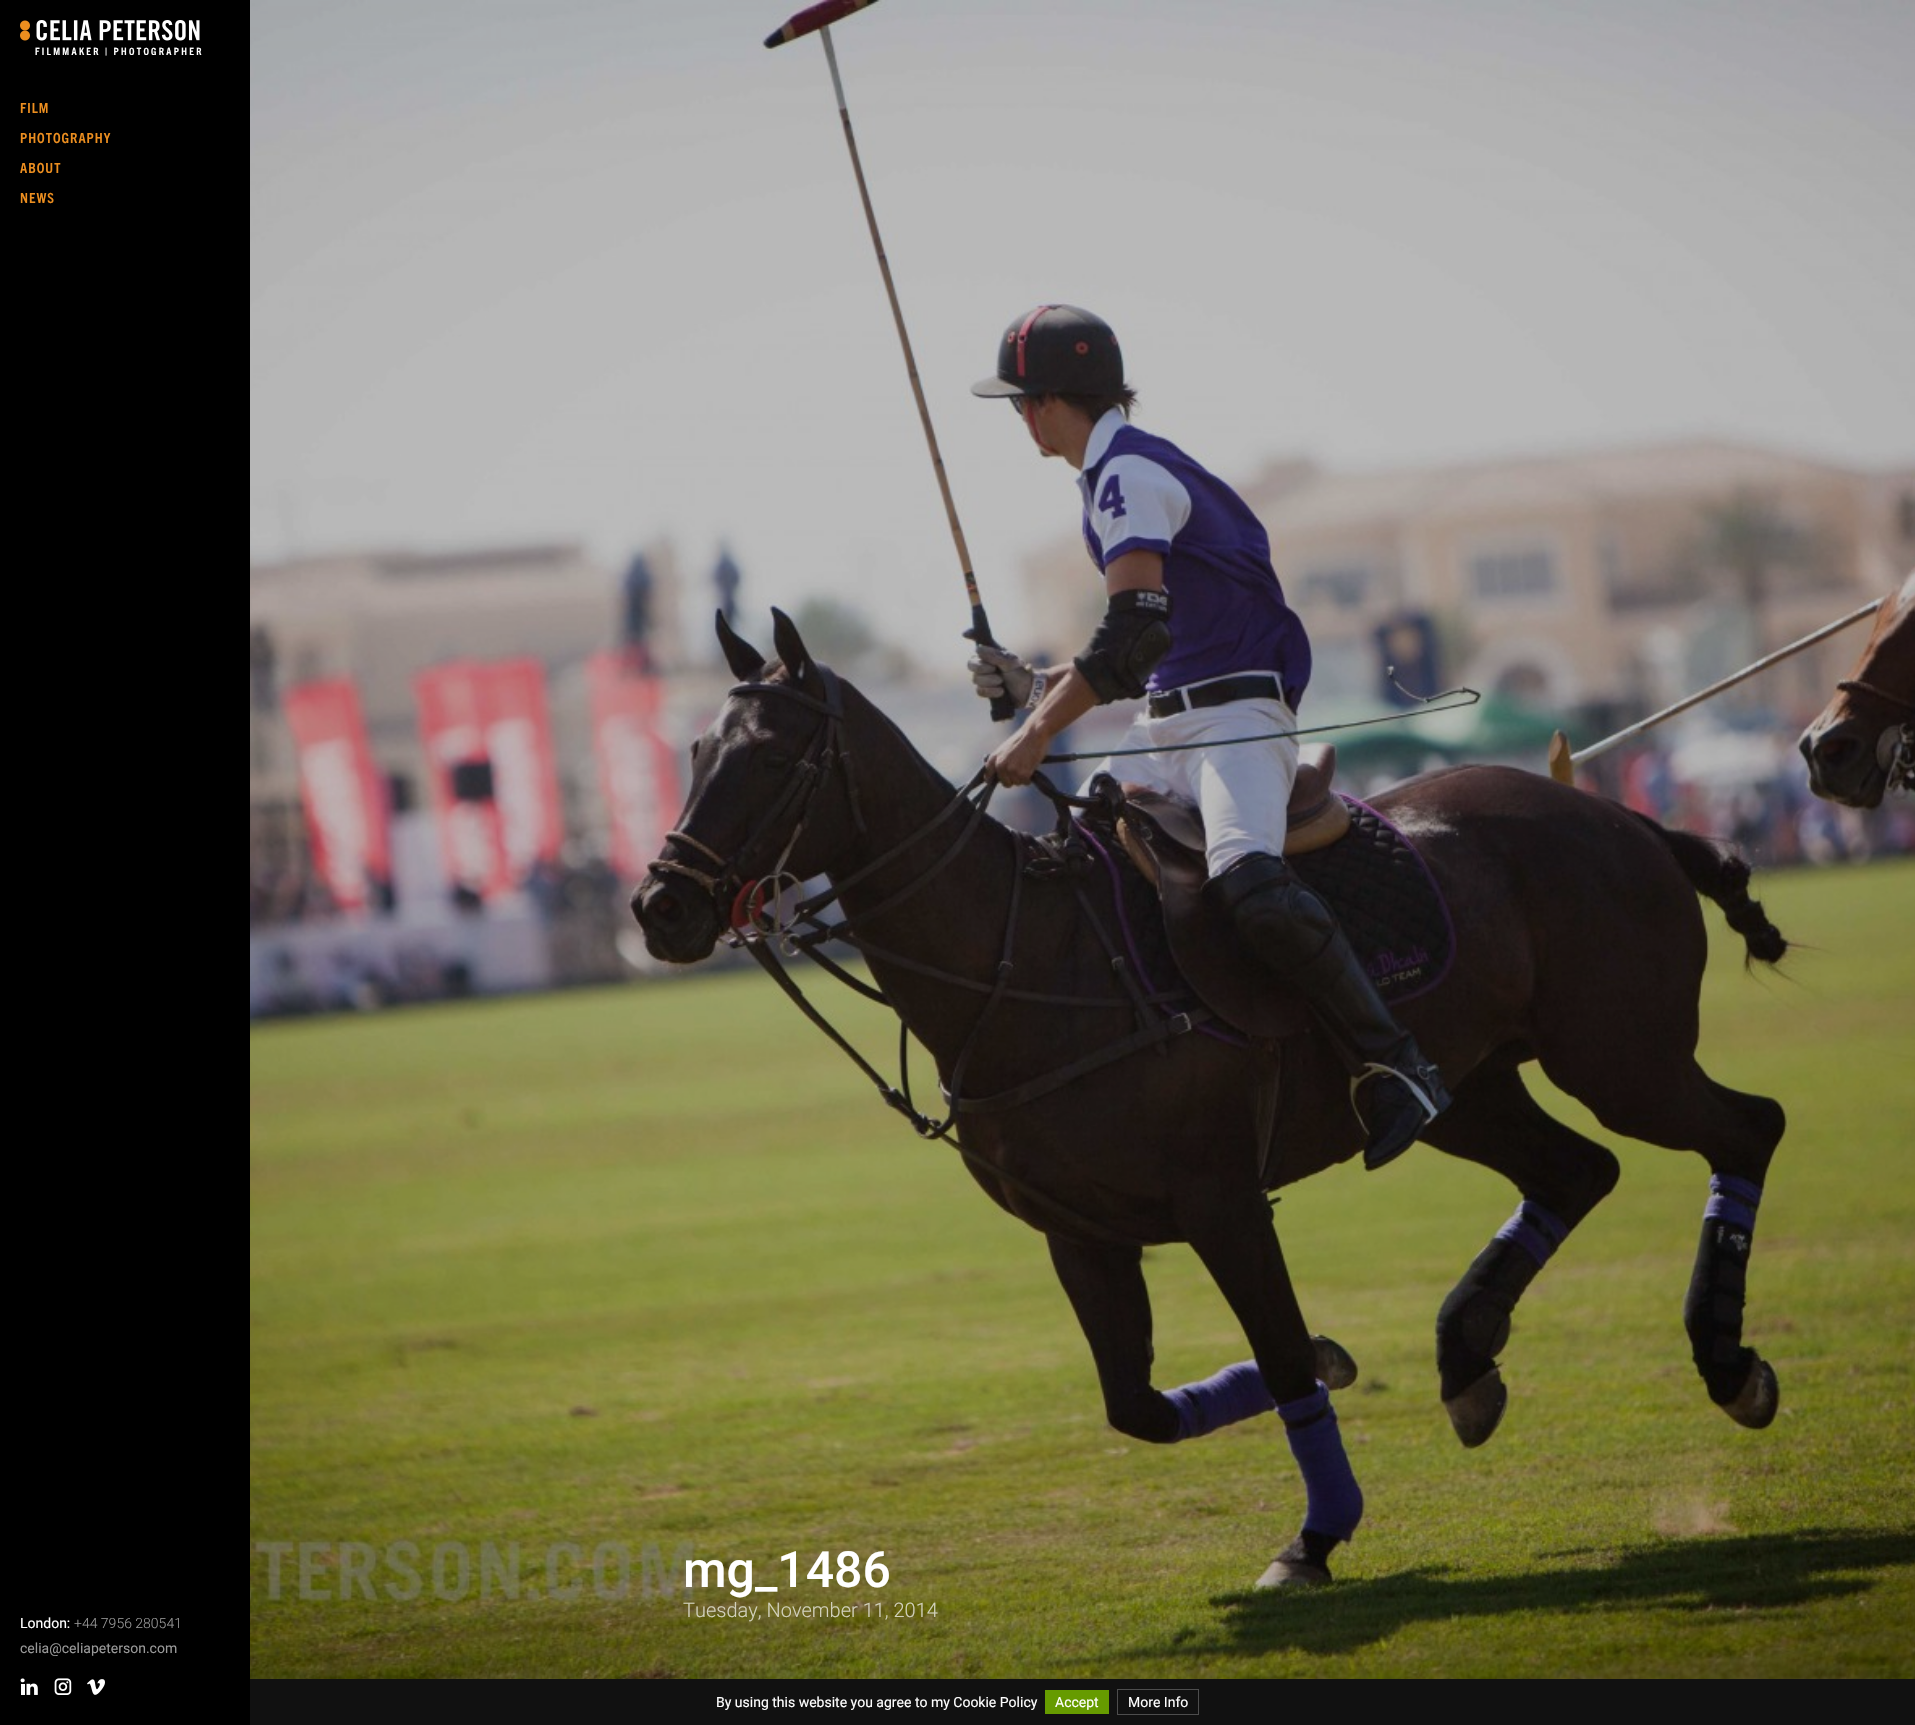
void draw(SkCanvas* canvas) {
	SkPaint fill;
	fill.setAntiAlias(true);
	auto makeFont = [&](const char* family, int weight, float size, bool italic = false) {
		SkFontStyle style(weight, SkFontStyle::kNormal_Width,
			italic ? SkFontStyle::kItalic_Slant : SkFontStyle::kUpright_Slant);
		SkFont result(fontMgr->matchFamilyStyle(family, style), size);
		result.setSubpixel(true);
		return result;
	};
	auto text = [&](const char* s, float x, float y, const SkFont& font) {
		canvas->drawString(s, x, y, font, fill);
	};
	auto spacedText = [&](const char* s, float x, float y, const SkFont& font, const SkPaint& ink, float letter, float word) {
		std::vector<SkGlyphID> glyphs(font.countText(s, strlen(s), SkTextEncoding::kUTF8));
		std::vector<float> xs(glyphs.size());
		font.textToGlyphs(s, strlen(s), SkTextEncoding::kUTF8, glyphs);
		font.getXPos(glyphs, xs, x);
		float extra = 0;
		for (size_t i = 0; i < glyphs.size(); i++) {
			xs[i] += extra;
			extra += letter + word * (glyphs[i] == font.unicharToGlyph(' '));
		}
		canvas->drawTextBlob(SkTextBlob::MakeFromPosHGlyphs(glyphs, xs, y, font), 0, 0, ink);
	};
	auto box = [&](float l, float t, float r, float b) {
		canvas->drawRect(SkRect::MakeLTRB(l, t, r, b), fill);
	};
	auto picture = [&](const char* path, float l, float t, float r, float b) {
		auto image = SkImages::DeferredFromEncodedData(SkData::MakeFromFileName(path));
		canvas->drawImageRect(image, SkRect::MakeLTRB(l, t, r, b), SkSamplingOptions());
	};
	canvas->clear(0xFFFFFFFF);
	fill.setColor(0xFF000000);
	box(0, 0, 250, 1725);
	picture("image0.png", 20, 20, 200, 41);
	picture("image1.png", 20, 1678, 38, 1695);
	picture("image2.png", 54, 1678, 72, 1695);
	picture("image3.png", 87, 1679, 105, 1695);
	picture("image4.png", 250, 0, 1915, 1679);
	fill.setColor(0xFF111111);
	box(250, 1679, 1915, 1725);
	fill.setColor(0xFF669B00);
	box(1045, 1690, 1109, 1714);
	fill.setStyle(SkPaint::kStroke_Style);
	fill.setStrokeWidth(1);
	fill.setColor(0xFF4D4D4D);
	canvas->drawRect(SkRect::MakeLTRB(1117.5f, 1689.5f, 1198.5f, 1714.5f), fill);
	auto font1 = makeFont("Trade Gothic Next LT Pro", 700, 10);
	fill.setStyle(SkPaint::kFill_Style);
	fill.setColor(0xFFFFFFFF);
	spacedText("FILMMAKER | PHOTOGRAPHER", 35, 55, font1, fill, 2.3f, 0);
	auto font2 = makeFont("Trade Gothic Next LT Pro", 700, 14);
	fill.setColor(0xFFEC8E1F);
	spacedText("FILM", 20, 113, font2, fill, 1, 0);
	spacedText("PHOTOGRAPHY", 20, 143, font2, fill, 1, 0);
	spacedText("ABOUT", 20, 173, font2, fill, 1, 0);
	spacedText("NEWS", 20, 203, font2, fill, 1, 0);
	auto font3 = makeFont("Roboto", 400, 14);
	fill.setColor(0xFFFFFFFF);
	text("London:", 20, 1628, font3);
	auto font4 = makeFont("Roboto", 300, 14);
	fill.setColor(0xFF999999);
	text("+44 7956 280541", 74, 1628, font4);
	text("celia@celiapeterson.com", 20, 1653, font3);
	auto font5 = makeFont("Roboto", 500, 50);
	fill.setColor(0xFFFFFFFF);
	text("mg_1486", 683, 1587, font5);
	auto font6 = makeFont("Roboto", 300, 20);
	fill.setColor(0xFFD2D1BD);
	text("Tuesday, November 11, 2014", 683, 1617, font6);
	fill.setColor(0xFFFFFFFF);
	text("By using this website you agree to my Cookie Policy", 716, 1707, font3);
	text("Accept", 1055, 1707, font3);
	text("More Info", 1128, 1707, font3);
}
